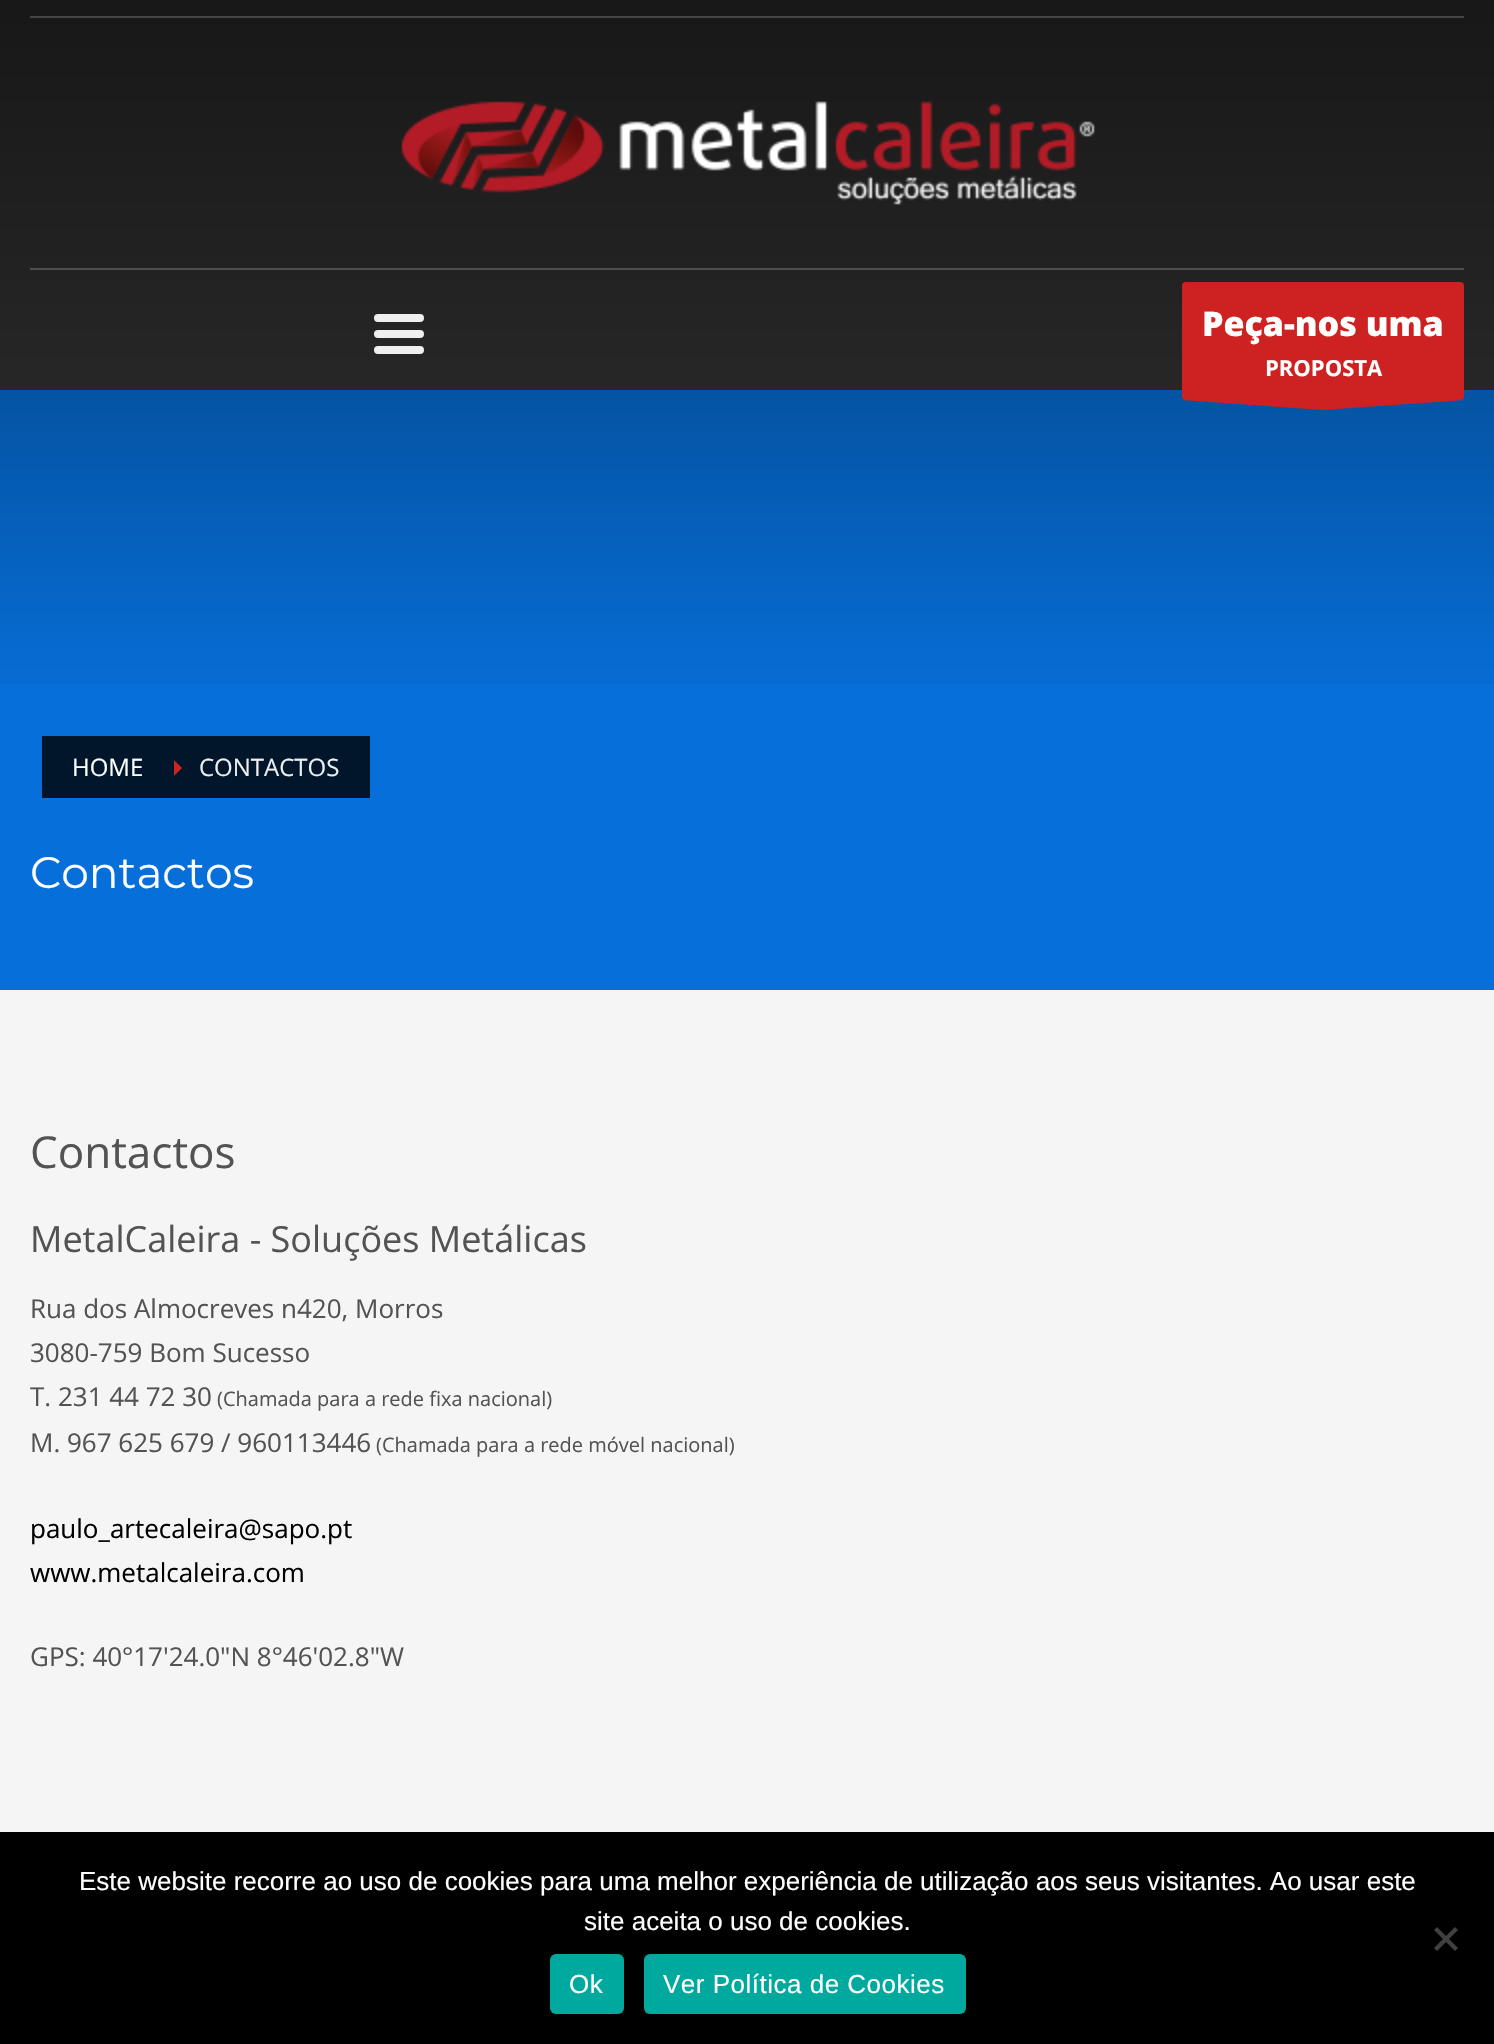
void draw(SkCanvas* canvas) {
	SkPaint fill;
	fill.setAntiAlias(true);
	auto makeFont = [&](const char* family, int weight, float size, bool italic = false) {
		SkFontStyle style(weight, SkFontStyle::kNormal_Width,
			italic ? SkFontStyle::kItalic_Slant : SkFontStyle::kUpright_Slant);
		SkFont result(fontMgr->matchFamilyStyle(family, style), size);
		result.setSubpixel(true);
		return result;
	};
	auto text = [&](const char* s, float x, float y, const SkFont& font) {
		canvas->drawString(s, x, y, font, fill);
	};
	auto spacedText = [&](const char* s, float x, float y, const SkFont& font, const SkPaint& ink, float letter, float word) {
		std::vector<SkGlyphID> glyphs(font.countText(s, strlen(s), SkTextEncoding::kUTF8));
		std::vector<float> xs(glyphs.size());
		font.textToGlyphs(s, strlen(s), SkTextEncoding::kUTF8, glyphs);
		font.getXPos(glyphs, xs, x);
		float extra = 0;
		for (size_t i = 0; i < glyphs.size(); i++) {
			xs[i] += extra;
			extra += letter + word * (glyphs[i] == font.unicharToGlyph(' '));
		}
		canvas->drawTextBlob(SkTextBlob::MakeFromPosHGlyphs(glyphs, xs, y, font), 0, 0, ink);
	};
	auto box = [&](float l, float t, float r, float b) {
		canvas->drawRect(SkRect::MakeLTRB(l, t, r, b), fill);
	};
	auto roundBox = [&](float l, float t, float r, float b, float radius) {
		canvas->drawRoundRect(SkRect::MakeLTRB(l, t, r, b), radius, radius, fill);
	};
	auto picture = [&](const char* path, float l, float t, float r, float b) {
		auto image = SkImages::DeferredFromEncodedData(SkData::MakeFromFileName(path));
		canvas->drawImageRect(image, SkRect::MakeLTRB(l, t, r, b), SkSamplingOptions());
	};
	canvas->clear(0xFFF5F5F5);
	fill.setColor(0xFF333333);
	box(0, 0, 1494, 390);
	fill.setColor(0xFF066FD9);
	box(0, 390, 1494, 990);
	{
		const SkColor colors[] = {0x99000000, 0x00000000};
		const float stops[] = {0, 1};
		const SkPoint ends[] = {{747, -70}, {747, 712}};
		fill.setShader(SkGradientShader::MakeLinear(ends, colors, stops, 2, SkTileMode::kClamp));
		fill.setAlpha(255);
	}
	box(0, 0, 1494, 684);
	fill.setShader(nullptr);
	fill.setColor(0xFF464646);
	box(30, 16, 1464, 18);
	picture("image0.png", 401, 101, 1095, 205);
	fill.setColor(0xFF4E4E4E);
	box(30, 268, 1464, 270);
	fill.setColor(0xFFEFEFEF);
	roundBox(374, 346, 424, 354, 4);
	roundBox(374, 330, 424, 338, 4);
	roundBox(374, 314, 424, 322, 4);
	fill.setColor(0xFFCD2122);
	roundBox(1182, 282, 1464, 400, 4);
	canvas->drawPath(SkPathBuilder(SkPathFillType::kEvenOdd).moveTo(1464, 400).lineTo(1323, 410).lineTo(1182, 400).close().detach(), fill);
	fill.setColor(0xFF01162B);
	box(42, 736, 370, 798);
	fill.setColor(0xFFCD2122);
	canvas->drawPath(SkPathBuilder().moveTo(174, 776).lineTo(174, 760).lineTo(182, 768).close().detach(), fill);
	fill.setColor(0xFF000000);
	box(0, 1832, 1494, 2044);
	fill.setColor(0xFF404040);
	canvas->drawPath(SkPathBuilder().moveTo(1455, 1927).lineTo(1458, 1930).lineTo(1437, 1951).lineTo(1434, 1948).close().detach(), fill);
	canvas->drawPath(SkPathBuilder().moveTo(1434, 1930).lineTo(1437, 1927).lineTo(1458, 1948).lineTo(1455, 1951).close().detach(), fill);
	fill.setColor(0xFF00A99D);
	roundBox(550, 1954, 624, 2014, 6);
	roundBox(644, 1954, 966, 2014, 6);
	auto font1 = makeFont("Open Sans", 800, 34);
	fill.setColor(0xFFFFFFFF);
	text("Peça-nos uma", 1202, 336, font1);
	auto font2 = makeFont("Open Sans", 700, 22);
	text("PROPOSTA", 1265, 376, font2);
	auto font3 = makeFont("Open Sans", 400, 24);
	text("HOME", 72, 776, font3);
	fill.setColor(0xFFEEEEEE);
	text("CONTACTOS", 199, 776, font3);
	auto font4 = makeFont("Montserrat", 400, 44);
	fill.setColor(0xFFFFFFFF);
	text("Contactos", 30, 888, font4);
	auto font5 = makeFont("Open Sans", 400, 44);
	fill.setColor(0xFF535353);
	text("Contactos", 30, 1168, font5);
	auto font6 = makeFont("Open Sans", 400, 36);
	text("MetalCaleira - Soluções Metálicas", 30, 1252, font6);
	auto font7 = makeFont("Open Sans", 400, 26);
	text("Rua dos Almocreves n420, Morros", 30, 1318, font7);
	text("3080-759 Bom Sucesso", 30, 1362, font7);
	text("T. 231 44 72 30", 30, 1406, font7);
	auto font8 = makeFont("Open Sans", 400, 20);
	text("(Chamada para a rede fixa nacional)", 217, 1406, font8);
	text("M. 967 625 679 / 960113446", 30, 1452, font7);
	text("(Chamada para a rede móvel nacional)", 376, 1452, font8);
	fill.setColor(0xFF000000);
	text("paulo_artecaleira@sapo.pt", 30, 1538, font7);
	text("www.metalcaleira.com", 30, 1582, font7);
	fill.setColor(0xFF535353);
	text("GPS: 40°17'24.0\"N 8°46'02.8\"W", 30, 1666, font7);
	auto font9 = makeFont("Liberation Sans", 400, 26);
	fill.setColor(0xFFFFFFFF);
	text("Este website recorre ao uso de cookies para uma melhor experiência de utilização aos seus visitantes. Ao usar este", 79, 1890, font9);
	text("site aceita o uso de cookies.", 584, 1930, font9);
	spacedText("Ok", 569, 1993, font9, fill, 0.5f, 0);
	spacedText("Ver Política de Cookies", 663, 1993, font9, fill, 0.5f, 0);
}
